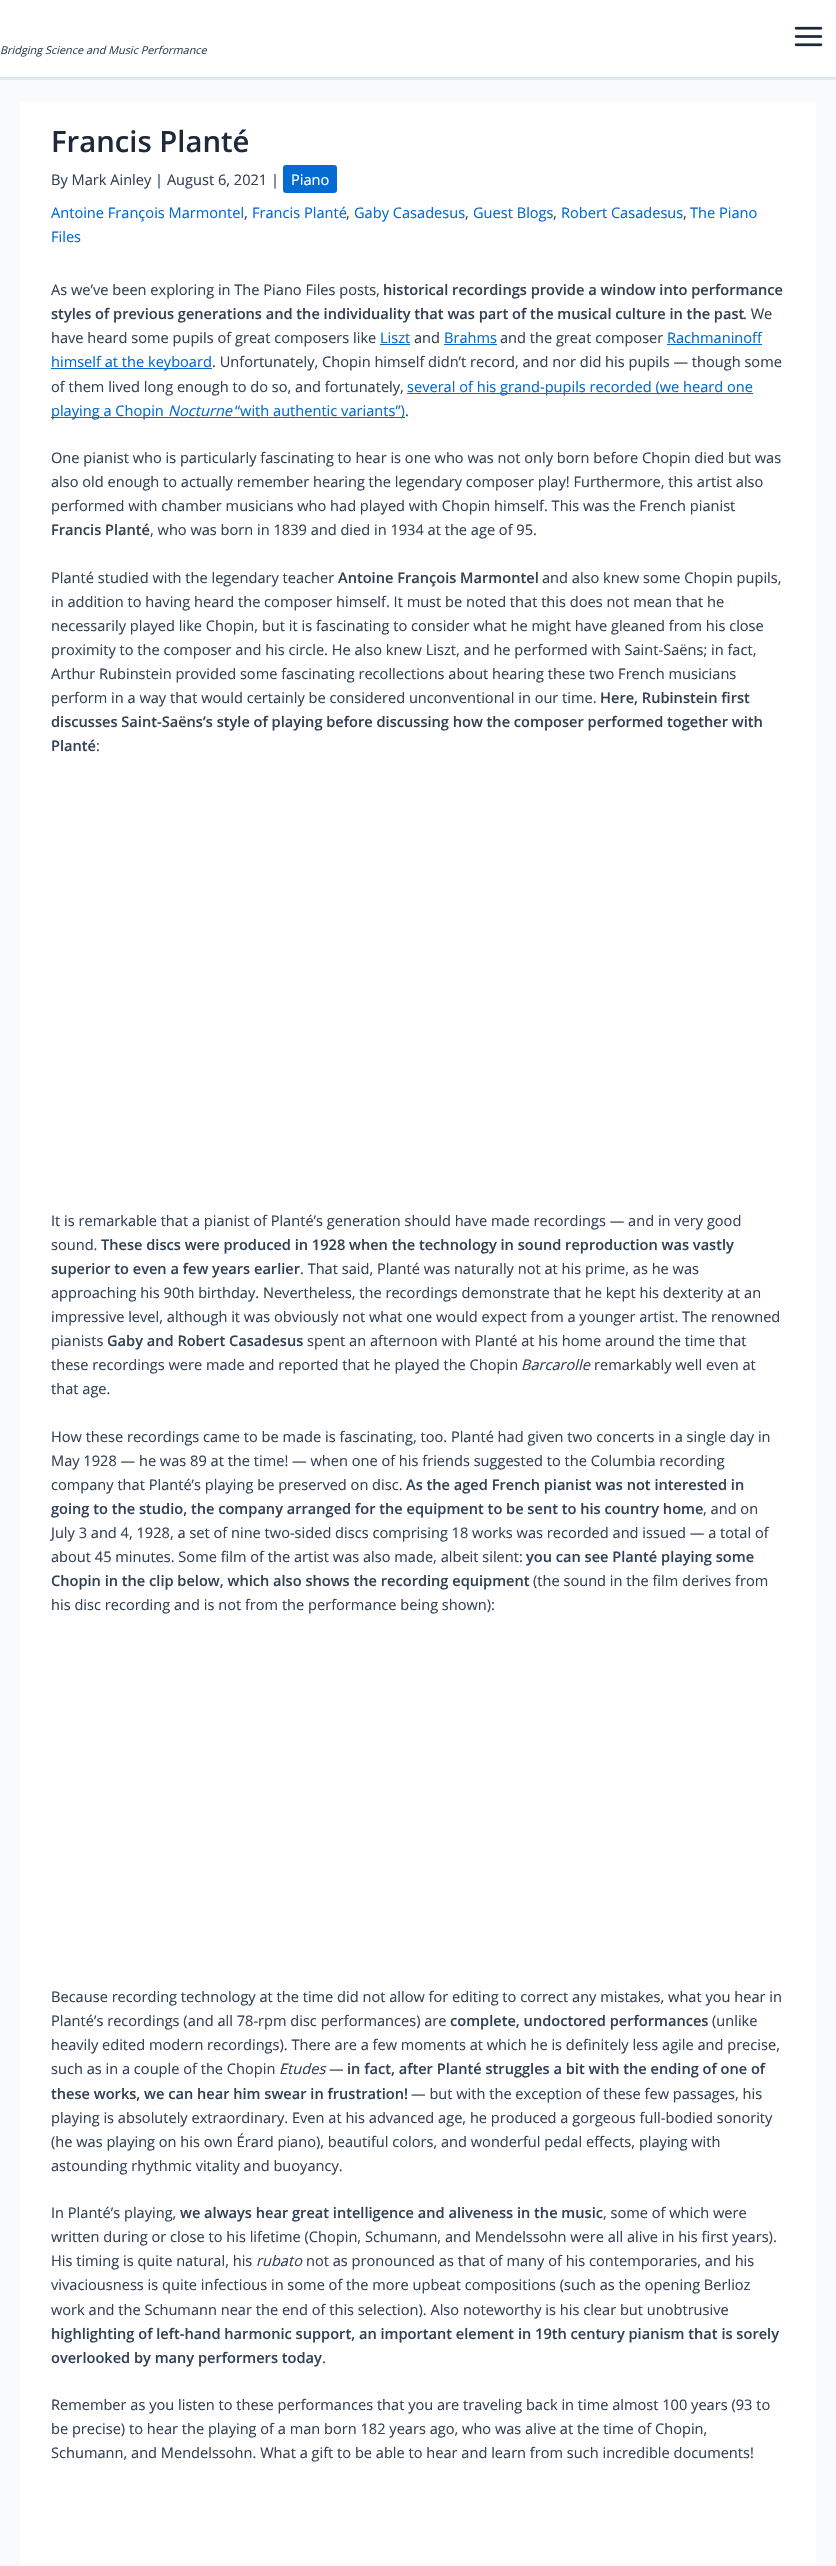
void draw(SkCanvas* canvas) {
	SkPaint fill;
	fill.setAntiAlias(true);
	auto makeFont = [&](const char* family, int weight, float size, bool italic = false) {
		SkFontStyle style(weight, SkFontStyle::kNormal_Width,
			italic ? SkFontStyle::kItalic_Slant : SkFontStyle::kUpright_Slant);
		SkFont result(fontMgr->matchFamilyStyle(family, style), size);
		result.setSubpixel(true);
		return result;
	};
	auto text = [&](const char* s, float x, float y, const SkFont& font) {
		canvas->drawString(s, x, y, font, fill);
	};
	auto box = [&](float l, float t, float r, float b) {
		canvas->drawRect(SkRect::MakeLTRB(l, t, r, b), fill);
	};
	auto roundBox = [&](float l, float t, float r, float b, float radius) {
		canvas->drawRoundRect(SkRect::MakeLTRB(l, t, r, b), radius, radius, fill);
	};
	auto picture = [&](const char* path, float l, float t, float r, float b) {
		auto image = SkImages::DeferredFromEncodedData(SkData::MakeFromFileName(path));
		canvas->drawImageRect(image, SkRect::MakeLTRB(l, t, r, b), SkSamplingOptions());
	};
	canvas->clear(0xFFF9FAFB);
	fill.setColor(0xFFFFFFFF);
	box(0, 0, 836, 77);
	fill.setColor(0xFFE2E8F0);
	box(0, 77, 836, 80);
	picture("image0.png", 794, 26, 823, 47);
	fill.setColor(0xFFFFFFFF);
	box(20, 102, 816, 2566);
	fill.setColor(0xFF046BD2);
	roundBox(283, 165, 337, 193, 3);
	box(380, 344, 410, 345);
	box(444, 344, 497, 345);
	box(667, 344, 762, 345);
	box(51, 368, 212, 369);
	box(407, 393, 753, 394);
	box(51, 417, 405, 418);
	auto font1 = makeFont("Open Sans", 400, 10.9f, true);
	fill.setColor(0xFF334155);
	text("Bridging Science and Music Performance", 0, 54, font1);
	auto font2 = makeFont("Open Sans", 600, 29.25f);
	fill.setColor(0xFF1E293B);
	text("Francis Planté", 51, 152, font2);
	auto font3 = makeFont("Open Sans", 400, 14.6f);
	fill.setColor(0xFF334155);
	text("By Mark Ainley | August 6, 2021 |", 51, 185, font3);
	fill.setColor(0xFFFFFFFF);
	text("Piano", 291, 185, font3);
	fill.setColor(0xFF046BD2);
	text("Antoine François Marmontel", 51, 218, font3);
	fill.setColor(0xFF334155);
	text(",", 244, 218, font3);
	fill.setColor(0xFF046BD2);
	text("Francis Planté", 252, 218, font3);
	fill.setColor(0xFF334155);
	text(",", 346, 218, font3);
	fill.setColor(0xFF046BD2);
	text("Gaby Casadesus", 354, 218, font3);
	fill.setColor(0xFF334155);
	text(",", 465, 218, font3);
	fill.setColor(0xFF046BD2);
	text("Guest Blogs", 473, 218, font3);
	fill.setColor(0xFF334155);
	text(",", 553, 218, font3);
	fill.setColor(0xFF046BD2);
	text("Robert Casadesus", 561, 218, font3);
	fill.setColor(0xFF334155);
	text(",", 683, 218, font3);
	fill.setColor(0xFF046BD2);
	text("The Piano", 690, 218, font3);
	text("Files", 51, 242, font3);
	fill.setColor(0xFF334155);
	text("As we’ve been exploring in The Piano Files posts,", 51, 295, font3);
	auto font4 = makeFont("Open Sans", 600, 14.6f);
	text("historical recordings provide a window into performance", 383, 295, font4);
	text("styles of previous generations and the individuality that was part of the musical culture in the past", 51, 319, font4);
	text(". We", 743, 319, font3);
	text("have heard some pupils of great composers like", 51, 343, font3);
	fill.setColor(0xFF046BD2);
	text("Liszt", 380, 343, font3);
	fill.setColor(0xFF334155);
	text("and", 414, 343, font3);
	fill.setColor(0xFF046BD2);
	text("Brahms", 444, 343, font3);
	fill.setColor(0xFF334155);
	text("and the great composer", 500, 343, font3);
	fill.setColor(0xFF046BD2);
	text("Rachmaninoff", 667, 343, font3);
	text("himself at the keyboard", 51, 367, font3);
	fill.setColor(0xFF334155);
	text(". Unfortunately, Chopin himself didn’t record, and nor did his pupils — though some", 212, 367, font3);
	text("of them lived long enough to do so, and fortunately,", 51, 392, font3);
	fill.setColor(0xFF046BD2);
	text("several of his grand-pupils recorded (we heard one", 407, 392, font3);
	text("playing a Chopin", 51, 416, font3);
	auto font5 = makeFont("Open Sans", 400, 14.6f, true);
	text("Nocturne", 168, 416, font5);
	text("“with authentic variants”)", 235, 416, font3);
	fill.setColor(0xFF334155);
	text(".", 405, 416, font3);
	text("One pianist who is particularly fascinating to hear is one who was not only born before Chopin died but was", 51, 463, font3);
	text("also old enough to actually remember hearing the legendary composer play! Furthermore, this artist also", 51, 487, font3);
	text("performed with chamber musicians who had played with Chopin himself. This was the French pianist", 51, 511, font3);
	text("Francis Planté", 51, 535, font4);
	text(", who was born in 1839 and died in 1934 at the age of 95.", 150, 535, font3);
	text("Planté studied with the legendary teacher", 51, 583, font3);
	text("Antoine François Marmontel", 338, 583, font4);
	text("and also knew some Chopin pupils,", 542, 583, font3);
	text("in addition to having heard the composer himself. It must be noted that this does not mean that he", 51, 607, font3);
	text("necessarily played like Chopin, but it is fascinating to consider what he might have gleaned from his close", 51, 631, font3);
	text("proximity to the composer and his circle. He also knew Liszt, and he performed with Saint-Saëns; in fact,", 51, 655, font3);
	text("Arthur Rubinstein provided some fascinating recollections about hearing these two French musicians", 51, 679, font3);
	text("perform in a way that would certainly be considered unconventional in our time.", 51, 703, font3);
	text("Here, Rubinstein first", 600, 703, font4);
	text("discusses Saint-Saëns’s style of playing before discussing how the composer performed together with", 51, 727, font4);
	text("Planté", 51, 751, font4);
	text(":", 96, 751, font3);
	text("It is remarkable that a pianist of Planté’s generation should have made recordings — and in very good", 51, 1226, font3);
	text("sound.", 51, 1250, font3);
	text("These discs were produced in 1928 when the technology in sound reproduction was vastly", 101, 1250, font4);
	text("superior to even a few years earlier", 51, 1274, font4);
	text(". That said, Planté was naturally not at his prime, as he was", 300, 1274, font3);
	text("approaching his 90th birthday. Nevertheless, the recordings demonstrate that he kept his dexterity at an", 51, 1298, font3);
	text("impressive level, although it was obviously not what one would expect from a younger artist. The renowned", 51, 1322, font3);
	text("pianists", 51, 1346, font3);
	text("Gaby and Robert Casadesus", 107, 1346, font4);
	text("spent an afternoon with Planté at his home around the time that", 307, 1346, font3);
	text("these recordings were made and reported that he played the Chopin", 51, 1370, font3);
	text("Barcarolle", 521, 1370, font5);
	text("remarkably well even at", 594, 1370, font3);
	text("that age.", 51, 1394, font3);
	text("How these recordings came to be made is fascinating, too. Planté had given two concerts in a single day in", 51, 1442, font3);
	text("May 1928 — he was 89 at the time! — when one of his friends suggested to the Columbia recording", 51, 1466, font3);
	text("company that Planté’s playing be preserved on disc.", 51, 1490, font3);
	text("As the aged French pianist was not interested in", 406, 1490, font4);
	text("going to the studio, the company arranged for the equipment to be sent to his country home", 51, 1514, font4);
	text(", and on", 703, 1514, font3);
	text("July 3 and 4, 1928, a set of nine two-sided discs comprising 18 works was recorded and issued — a total of", 51, 1538, font3);
	text("about 45 minutes. Some film of the artist was also made, albeit silent:", 51, 1562, font3);
	text("you can see Planté playing some", 526, 1562, font4);
	text("Chopin in the clip below, which also shows the recording equipment", 51, 1586, font4);
	text("(the sound in the film derives from", 533, 1586, font3);
	text("his disc recording and is not from the performance being shown):", 51, 1610, font3);
	text("Because recording technology at the time did not allow for editing to correct any mistakes, what you hear in", 51, 2002, font3);
	text("Planté’s recordings (and all 78-rpm disc performances) are", 51, 2026, font3);
	text("complete, undoctored performances", 450, 2026, font4);
	text("(unlike", 712, 2026, font3);
	text("heavily edited modern recordings). There are a few moments at which he is definitely less agile and precise,", 51, 2050, font3);
	text("such as in a couple of the Chopin", 51, 2074, font3);
	text("Etudes", 279, 2074, font5);
	text("—", 329, 2074, font3);
	text("in fact, after Planté struggles a bit with the ending of one of", 347, 2074, font4);
	text("these works, we can hear him swear in frustration!", 51, 2099, font4);
	text("— but with the exception of these few passages, his", 411, 2099, font3);
	text("playing is absolutely extraordinary. Even at his advanced age, he produced a gorgeous full-bodied sonority", 51, 2123, font3);
	text("(he was playing on his own Érard piano), beautiful colors, and wonderful pedal effects, playing with", 51, 2147, font3);
	text("astounding rhythmic vitality and buoyancy.", 51, 2171, font3);
	text("In Planté’s playing,", 51, 2218, font3);
	text("we always hear great intelligence and aliveness in the music", 180, 2218, font4);
	text(", some of which were", 603, 2218, font3);
	text("written during or close to his lifetime (Chopin, Schumann, and Mendelssohn were all alive in his first years).", 51, 2242, font3);
	text("His timing is quite natural, his", 51, 2266, font3);
	text("rubato", 256, 2266, font5);
	text("not as pronounced as that of many of his contemporaries, and his", 306, 2266, font3);
	text("vivaciousness is quite infectious in some of the more upbeat compositions (such as the opening Berlioz", 51, 2290, font3);
	text("work and the Schumann near the end of this selection). Also noteworthy is his clear but unobtrusive", 51, 2315, font3);
	text("highlighting of left-hand harmonic support, an important element in 19th century pianism that is sorely", 51, 2339, font4);
	text("overlooked by many performers today", 51, 2363, font4);
	text(".", 322, 2363, font3);
	text("Remember as you listen to these performances that you are traveling back in time almost 100 years (93 to", 51, 2410, font3);
	text("be precise) to hear the playing of a man born 182 years ago, who was alive at the time of Chopin,", 51, 2434, font3);
	text("Schumann, and Mendelssohn. What a gift to be able to hear and learn from such incredible documents!", 51, 2458, font3);
}
